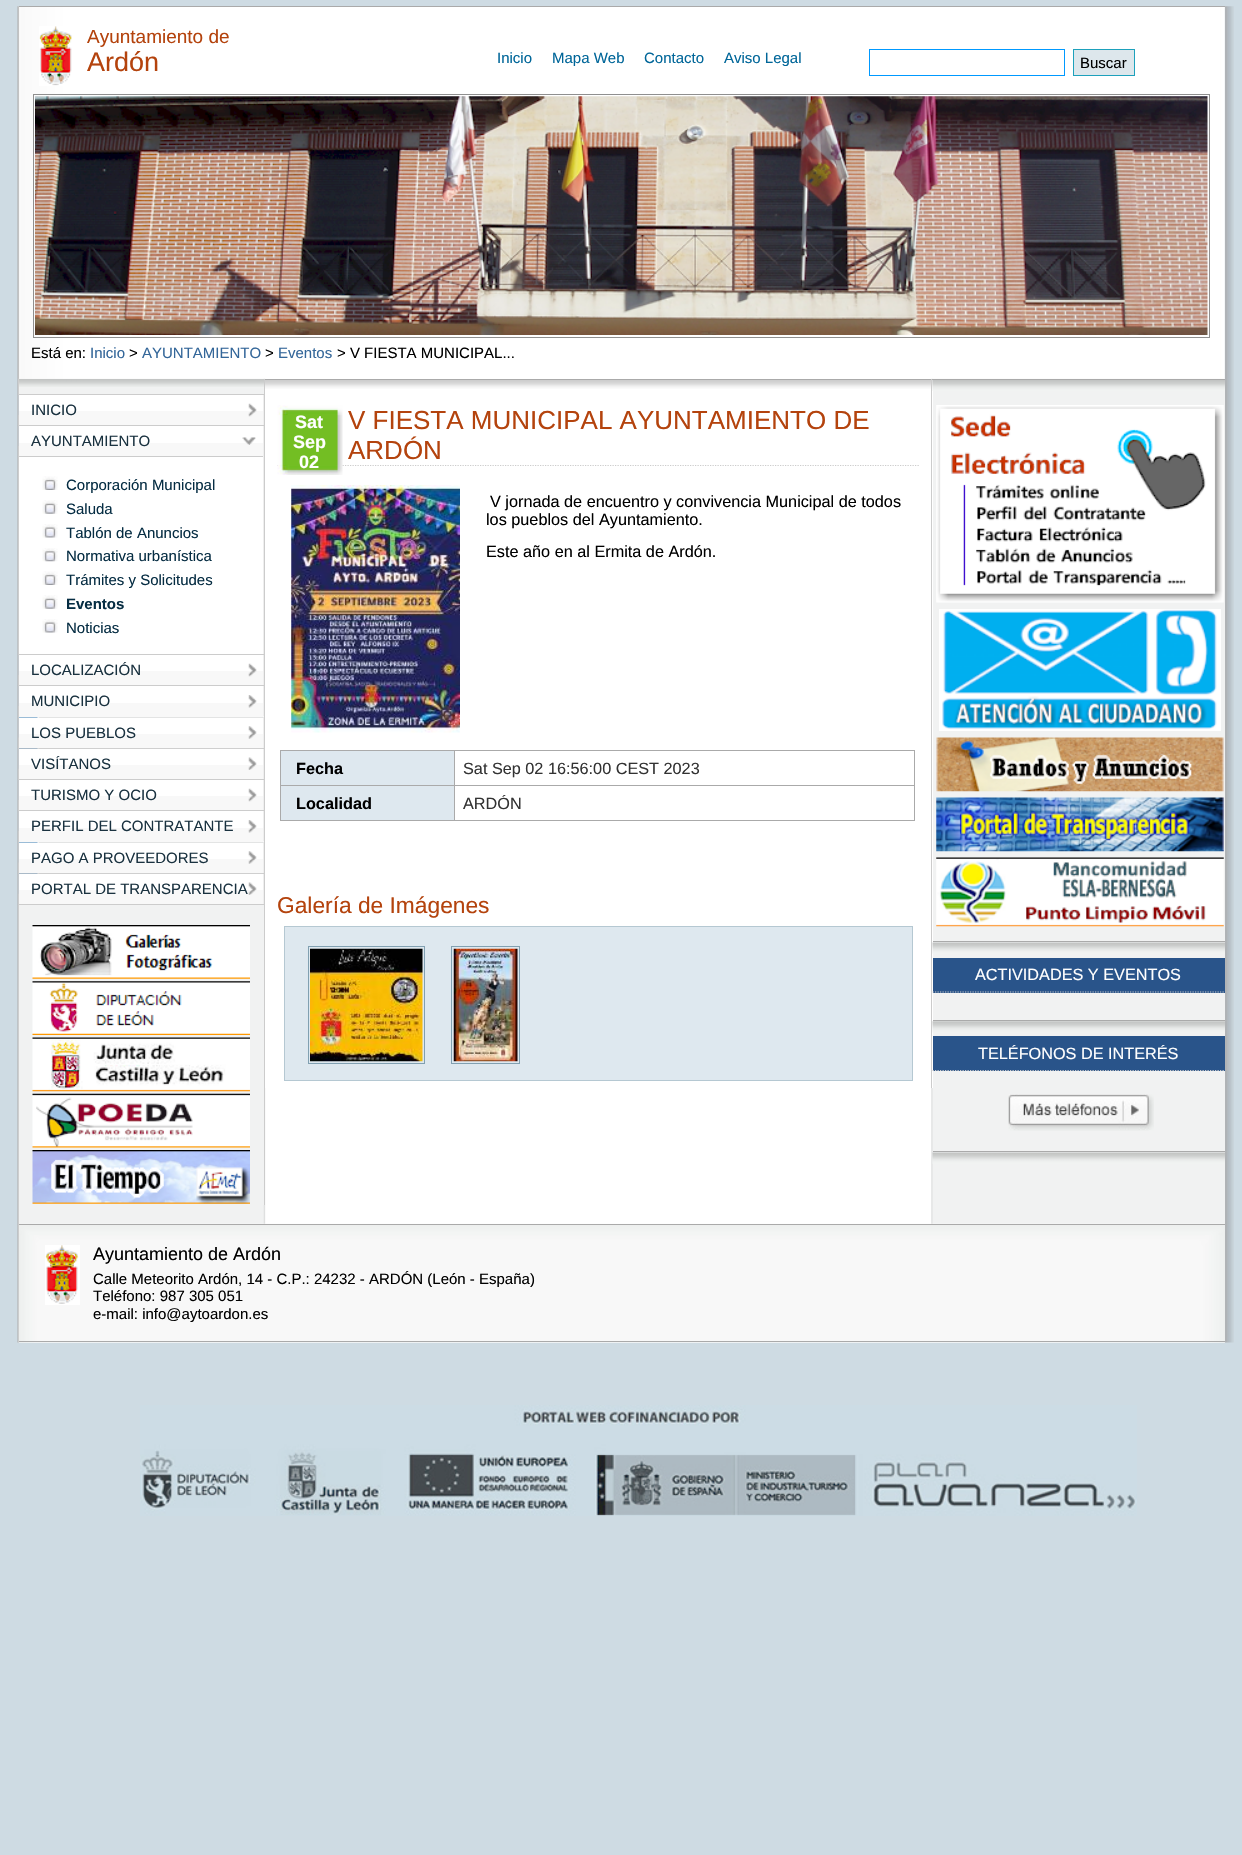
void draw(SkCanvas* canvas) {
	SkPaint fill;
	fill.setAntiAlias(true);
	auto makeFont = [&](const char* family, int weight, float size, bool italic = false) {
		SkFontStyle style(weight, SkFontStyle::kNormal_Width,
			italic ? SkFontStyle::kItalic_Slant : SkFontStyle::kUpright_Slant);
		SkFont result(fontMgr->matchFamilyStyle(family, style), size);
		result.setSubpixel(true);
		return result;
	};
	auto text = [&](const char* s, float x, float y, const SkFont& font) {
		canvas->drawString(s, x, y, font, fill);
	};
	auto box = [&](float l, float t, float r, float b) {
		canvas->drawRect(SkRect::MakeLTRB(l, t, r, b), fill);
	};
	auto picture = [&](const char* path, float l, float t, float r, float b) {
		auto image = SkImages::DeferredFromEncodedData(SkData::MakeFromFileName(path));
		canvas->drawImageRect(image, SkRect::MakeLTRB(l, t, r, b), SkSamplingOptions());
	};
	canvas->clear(0xFFCEDBE3);
	picture("image0.png", 17, 6, 1234, 1343);
	fill.setColor(0xFFAAAAAA);
	box(19, 6, 1225, 7);
	picture("image1.png", 39, 26, 72, 86);
	fill.setStyle(SkPaint::kStroke_Style);
	fill.setStrokeWidth(1);
	fill.setColor(0xFF0099FF);
	canvas->drawRect(SkRect::MakeLTRB(869.5f, 49.5f, 1064.5f, 75.5f), fill);
	fill.setStyle(SkPaint::kFill_Style);
	fill.setColor(0xFFDDE7EC);
	canvas->drawRect(SkRect::MakeLTRB(1073.5f, 49.5f, 1134.5f, 75.5f), fill);
	fill.setStyle(SkPaint::kStroke_Style);
	fill.setColor(0xFF1DA1BC);
	canvas->drawRect(SkRect::MakeLTRB(1073.5f, 49.5f, 1134.5f, 75.5f), fill);
	fill.setColor(0xFF8F8F8F);
	canvas->drawRect(SkRect::MakeLTRB(33.5f, 94.5f, 1209.5f, 337.5f), fill);
	picture("image2.png", 35, 96, 1208, 335);
	picture("image38.png", 18, 1223, 1225, 1343);
	picture("image3.png", 18, 378, 1225, 1224);
	fill.setStyle(SkPaint::kFill_Style);
	fill.setColor(0xFFF1F2F2);
	box(263, 387, 264, 1205);
	picture("image4.png", 19, 379, 264, 387);
	fill.setColor(0xFFCCCCCC);
	box(264, 379, 265, 1205);
	box(19, 394, 264, 395);
	picture("image5.png", 18, 395, 19, 415);
	box(19, 425, 264, 426);
	fill.setColor(0xFFFFFFFF);
	box(19, 395, 263, 411);
	fill.setColor(0xFFF8F8F8);
	box(19, 411, 263, 425);
	fill.setColor(0xFFEEEEEE);
	box(263, 395, 264, 425);
	picture("image6.png", 248, 403, 257, 417);
	picture("image7.png", 18, 426, 19, 446);
	fill.setColor(0xFFCCCCCC);
	box(19, 654, 264, 655);
	fill.setColor(0xFFFFFFFF);
	box(19, 426, 263, 443);
	fill.setColor(0xFFF8F8F8);
	box(19, 443, 263, 456);
	fill.setColor(0xFFEEEEEE);
	box(263, 426, 264, 456);
	picture("image8.png", 242, 437, 256, 445);
	fill.setColor(0xFFFFFFFF);
	box(19, 457, 263, 654);
	fill.setColor(0xFFCCCCCC);
	box(19, 456, 264, 457);
	fill.setColor(0xFFEEEEEE);
	box(263, 456, 264, 654);
	picture("image9.png", 42, 476, 58, 490);
	picture("image10.png", 42, 500, 58, 514);
	picture("image11.png", 42, 524, 58, 538);
	picture("image12.png", 42, 548, 58, 562);
	picture("image9.png", 42, 571, 58, 585);
	picture("image10.png", 42, 595, 58, 609);
	picture("image11.png", 42, 619, 58, 633);
	picture("image5.png", 18, 655, 19, 675);
	fill.setColor(0xFFCCCCCC);
	box(19, 685, 264, 686);
	fill.setColor(0xFFFFFFFF);
	box(19, 655, 263, 671);
	fill.setColor(0xFFF8F8F8);
	box(19, 671, 263, 685);
	fill.setColor(0xFFEEEEEE);
	box(263, 655, 264, 685);
	picture("image6.png", 248, 663, 257, 677);
	picture("image7.png", 18, 686, 19, 706);
	fill.setColor(0xFFFFFFFF);
	box(19, 686, 263, 703);
	fill.setColor(0xFFF8F8F8);
	box(19, 703, 264, 717);
	fill.setColor(0xFFEEEEEE);
	box(263, 686, 264, 716);
	picture("image13.png", 248, 695, 257, 708);
	picture("image14.png", 18, 717, 264, 738);
	fill.setColor(0xFFCCCCCC);
	box(19, 748, 264, 749);
	fill.setColor(0xFFFFFFFF);
	box(19, 718, 263, 734);
	fill.setColor(0xFFF8F8F8);
	box(19, 734, 263, 748);
	fill.setColor(0xFFEEEEEE);
	box(263, 718, 264, 748);
	picture("image15.png", 248, 726, 257, 739);
	picture("image16.png", 18, 748, 264, 769);
	fill.setColor(0xFFCCCCCC);
	box(19, 779, 264, 780);
	fill.setColor(0xFFFFFFFF);
	box(19, 749, 263, 765);
	fill.setColor(0xFFF8F8F8);
	box(19, 765, 263, 779);
	fill.setColor(0xFFEEEEEE);
	box(263, 749, 264, 779);
	picture("image17.png", 248, 757, 257, 770);
	picture("image5.png", 18, 780, 19, 800);
	fill.setColor(0xFFCCCCCC);
	box(19, 810, 264, 811);
	fill.setColor(0xFFFFFFFF);
	box(19, 780, 263, 796);
	fill.setColor(0xFFF8F8F8);
	box(19, 796, 263, 810);
	fill.setColor(0xFFEEEEEE);
	box(263, 780, 264, 810);
	picture("image6.png", 248, 788, 257, 802);
	picture("image7.png", 18, 811, 19, 831);
	fill.setColor(0xFFFFFFFF);
	box(19, 811, 263, 828);
	fill.setColor(0xFFF8F8F8);
	box(19, 828, 264, 842);
	fill.setColor(0xFFEEEEEE);
	box(263, 811, 264, 841);
	picture("image13.png", 248, 820, 257, 833);
	picture("image14.png", 18, 842, 264, 863);
	fill.setColor(0xFFCCCCCC);
	box(19, 873, 264, 874);
	fill.setColor(0xFFFFFFFF);
	box(19, 843, 263, 859);
	fill.setColor(0xFFF8F8F8);
	box(19, 859, 263, 873);
	fill.setColor(0xFFEEEEEE);
	box(263, 843, 264, 873);
	picture("image15.png", 248, 851, 257, 864);
	picture("image16.png", 18, 873, 264, 894);
	fill.setColor(0xFFCCCCCC);
	box(19, 904, 264, 905);
	fill.setColor(0xFFFFFFFF);
	box(19, 874, 263, 890);
	fill.setColor(0xFFF8F8F8);
	box(19, 890, 263, 904);
	fill.setColor(0xFFEEEEEE);
	box(263, 874, 264, 904);
	picture("image17.png", 248, 882, 257, 895);
	picture("image18.png", 32, 925, 250, 979);
	picture("image19.png", 32, 981, 250, 1035);
	picture("image20.png", 32, 1037, 250, 1092);
	picture("image21.png", 32, 1093, 250, 1148);
	picture("image22.png", 32, 1150, 250, 1204);
	fill.setColor(0xFFFFFFFF);
	box(265, 380, 933, 1088);
	picture("image23.png", 265, 380, 933, 389);
	fill.setColor(0xFFAAAAAA);
	box(265, 379, 1225, 380);
	fill.setColor(0xFFCCCCCC);
	box(931, 379, 932, 1088);
	fill.setStyle(SkPaint::kStroke_Style);
	fill.setStrokeWidth(1.2f);
	fill.setPathEffect(SkDashPathEffect::Make({{1.25f, 1.25f}}, 0));
	canvas->drawPath(SkPathBuilder().moveTo(277.5f, 465.5f).lineTo(919, 465.5f).detach(), fill);
	fill.setPathEffect(nullptr);
	picture("image24.png", 277, 405, 343, 475);
	picture("image25.png", 291, 485, 460, 733);
	fill.setStyle(SkPaint::kFill_Style);
	fill.setColor(0xFFAAAAAA);
	box(280, 750, 915, 751);
	box(914, 750, 915, 821);
	box(280, 820, 915, 821);
	box(280, 750, 281, 821);
	fill.setColor(0xFFDEE8EF);
	box(281, 751, 454, 785);
	fill.setColor(0xFFAAAAAA);
	box(454, 785, 915, 786);
	box(454, 785, 455, 821);
	box(280, 785, 455, 786);
	box(454, 750, 455, 786);
	fill.setColor(0xFFDEE8EF);
	box(281, 786, 454, 820);
	canvas->drawRect(SkRect::MakeLTRB(284.5f, 926.5f, 912.5f, 1080.5f), fill);
	fill.setStyle(SkPaint::kStroke_Style);
	fill.setStrokeWidth(1);
	fill.setColor(0xFFB5C8D2);
	canvas->drawRect(SkRect::MakeLTRB(284.5f, 926.5f, 912.5f, 1080.5f), fill);
	fill.setColor(0xFF81A0B1);
	canvas->drawRect(SkRect::MakeLTRB(308.5f, 946.5f, 424.5f, 1063.5f), fill);
	canvas->drawRect(SkRect::MakeLTRB(451.5f, 946.5f, 519.5f, 1063.5f), fill);
	picture("image26.png", 310, 948, 423, 1062);
	picture("image27.png", 453, 948, 518, 1062);
	picture("image28.png", 932, 380, 1225, 391);
	picture("image29.png", 936, 405, 1224, 603);
	picture("image30.png", 939, 609, 1221, 731);
	picture("image31.png", 936, 737, 1224, 792);
	picture("image32.png", 936, 797, 1224, 852);
	picture("image33.png", 936, 857, 1224, 927);
	picture("image34.png", 932, 942, 1225, 954);
	fill.setStyle(SkPaint::kFill_Style);
	fill.setColor(0xFFAAAAAA);
	box(933, 941, 1225, 942);
	fill.setColor(0xFF29548A);
	box(933, 958, 1225, 993);
	fill.setStyle(SkPaint::kStroke_Style);
	fill.setStrokeWidth(1.2f);
	fill.setColor(0xFFCCCCCC);
	fill.setPathEffect(SkDashPathEffect::Make({{1.25f, 1.25f}}, 0));
	canvas->drawPath(SkPathBuilder().moveTo(932.5f, 992).lineTo(1225, 992).detach(), fill);
	fill.setPathEffect(nullptr);
	picture("image35.png", 932, 1021, 1225, 1033);
	fill.setStyle(SkPaint::kFill_Style);
	fill.setColor(0xFFAAAAAA);
	box(933, 1020, 1225, 1021);
	fill.setColor(0xFF29548A);
	box(933, 1036, 1225, 1071);
	fill.setStyle(SkPaint::kStroke_Style);
	fill.setColor(0xFFCCCCCC);
	fill.setPathEffect(SkDashPathEffect::Make({{1.25f, 1.25f}}, 0));
	canvas->drawPath(SkPathBuilder().moveTo(932.5f, 1070.5f).lineTo(1225, 1070.5f).detach(), fill);
	fill.setPathEffect(nullptr);
	picture("image36.png", 1008, 1094, 1154, 1131);
	picture("image37.png", 932, 1152, 1225, 1164);
	fill.setStyle(SkPaint::kFill_Style);
	fill.setColor(0xFFAAAAAA);
	box(933, 1151, 1225, 1152);
	box(19, 1224, 1225, 1225);
	box(19, 1341, 1225, 1342);
	picture("image39.png", 45, 1245, 80, 1305);
	picture("image40.png", 140, 1405, 1137, 1516);
	auto font1 = makeFont("Liberation Sans", 400, 19);
	fill.setColor(0xFFB4430D);
	text("Ayuntamiento de", 87, 43, font1);
	auto font2 = makeFont("Liberation Sans", 400, 27);
	text("Ardón", 87, 71, font2);
	auto font3 = makeFont("Liberation Sans", 400, 15);
	fill.setColor(0xFF006699);
	text("Inicio", 497, 63, font3);
	text("Mapa Web", 552, 63, font3);
	text("Contacto", 644, 63, font3);
	text("Aviso Legal", 724, 63, font3);
	fill.setColor(0xFF000000);
	text("Buscar", 1080, 68, font3);
	text("Está en:", 31, 358, font3);
	fill.setColor(0xFF336699);
	text("Inicio", 90, 358, font3);
	fill.setColor(0xFF000000);
	text(">", 129, 358, font3);
	fill.setColor(0xFF336699);
	text("AYUNTAMIENTO", 142, 358, font3);
	fill.setColor(0xFF000000);
	text(">", 265, 358, font3);
	fill.setColor(0xFF336699);
	text("Eventos", 278, 358, font3);
	fill.setColor(0xFF000000);
	text("> V FIESTA MUNICIPAL...", 337, 358, font3);
	fill.setColor(0xFF1A3240);
	text("INICIO", 31, 415, font3);
	text("AYUNTAMIENTO", 31, 446, font3);
	fill.setColor(0xFF062D43);
	text("Corporación Municipal", 66, 490, font3);
	text("Saluda", 66, 514, font3);
	text("Tablón de Anuncios", 66, 538, font3);
	text("Normativa urbanística", 66, 561, font3);
	text("Trámites y Solicitudes", 66, 585, font3);
	auto font4 = makeFont("Liberation Sans", 700, 15);
	text("Eventos", 66, 609, font4);
	text("Noticias", 66, 633, font3);
	fill.setColor(0xFF1A3240);
	text("LOCALIZACIÓN", 31, 675, font3);
	text("MUNICIPIO", 31, 706, font3);
	text("LOS PUEBLOS", 31, 738, font3);
	text("VISÍTANOS", 31, 769, font3);
	text("TURISMO Y OCIO", 31, 800, font3);
	text("PERFIL DEL CONTRATANTE", 31, 831, font3);
	text("PAGO A PROVEEDORES", 31, 863, font3);
	text("PORTAL DE TRANSPARENCIA", 31, 894, font3);
	auto font5 = makeFont("Liberation Sans", 700, 18);
	fill.setColor(0xFFFFFFFF);
	text("Sat", 295, 428, font5);
	text("Sep", 293, 448, font5);
	text("02", 299, 468, font5);
	auto font6 = makeFont("Liberation Sans", 400, 26);
	fill.setColor(0xFFB4430D);
	text("V FIESTA MUNICIPAL AYUNTAMIENTO DE", 348, 429, font6);
	text("ARDÓN", 348, 459, font6);
	auto font7 = makeFont("Liberation Sans", 400, 16.25f);
	fill.setColor(0xFF000000);
	text("V jornada de encuentro y convivencia Municipal de todos", 490, 507, font7);
	text("los pueblos del Ayuntamiento.", 486, 525, font7);
	text("Este año en al Ermita de Ardón.", 486, 557, font7);
	auto font8 = makeFont("Liberation Sans", 700, 16.25f);
	text("Fecha", 296, 774, font8);
	fill.setColor(0xFF333333);
	text("Sat Sep 02 16:56:00 CEST 2023", 463, 774, font7);
	fill.setColor(0xFF000000);
	text("Localidad", 296, 809, font8);
	fill.setColor(0xFF333333);
	text("ARDÓN", 463, 809, font7);
	auto font9 = makeFont("Liberation Sans", 400, 22.75f);
	fill.setColor(0xFFB4430D);
	text("Galería de Imágenes", 277, 913, font9);
	fill.setColor(0xFFFFFFFF);
	text("ACTIVIDADES Y EVENTOS", 975, 980, font7);
	text("TELÉFONOS DE INTERÉS", 978, 1059, font7);
	auto font10 = makeFont("Liberation Sans", 400, 18);
	fill.setColor(0xFF000000);
	text("Ayuntamiento de Ardón", 93, 1260, font10);
	text("Calle Meteorito Ardón, 14 - C.P.: 24232 - ARDÓN (León - España)", 93, 1284, font3);
	text("Teléfono: 987 305 051", 93, 1301, font3);
	text("e-mail: info@aytoardon.es", 93, 1319, font3);
}
